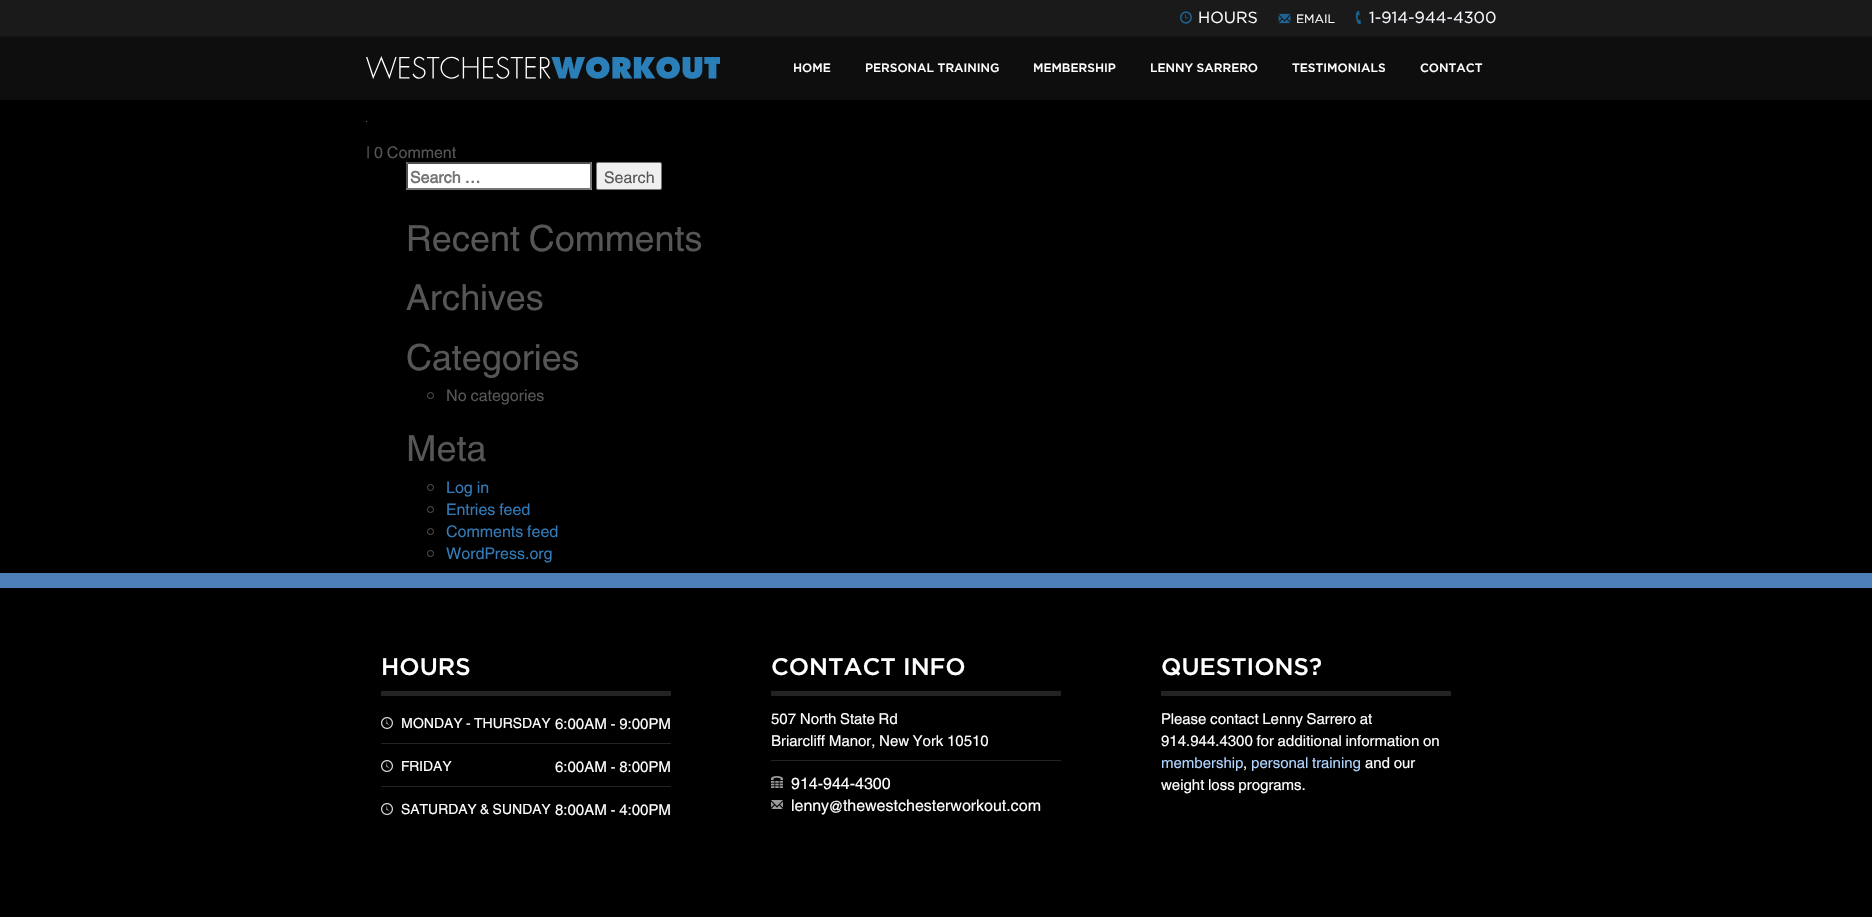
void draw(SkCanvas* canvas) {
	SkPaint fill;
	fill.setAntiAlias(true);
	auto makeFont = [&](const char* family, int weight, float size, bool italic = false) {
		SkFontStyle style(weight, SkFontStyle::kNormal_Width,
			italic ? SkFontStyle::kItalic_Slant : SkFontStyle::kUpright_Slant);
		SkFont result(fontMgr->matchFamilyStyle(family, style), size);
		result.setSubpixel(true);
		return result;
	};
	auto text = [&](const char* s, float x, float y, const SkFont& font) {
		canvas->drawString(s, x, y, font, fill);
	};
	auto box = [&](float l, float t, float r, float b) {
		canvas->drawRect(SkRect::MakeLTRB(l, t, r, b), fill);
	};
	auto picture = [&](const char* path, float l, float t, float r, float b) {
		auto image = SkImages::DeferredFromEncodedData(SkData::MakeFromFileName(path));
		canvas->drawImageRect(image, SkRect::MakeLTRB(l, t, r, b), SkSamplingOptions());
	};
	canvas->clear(0xFF000000);
	fill.setColor(0xFF1A1A1A);
	box(0, 0, 1872, 38);
	picture("image0.png", 1180, 11, 1192, 24);
	picture("image1.png", 1278, 13, 1291, 24);
	picture("image2.png", 1355, 11, 1361, 24);
	fill.setColor(0xD9101010);
	box(0, 36, 1872, 100);
	picture("image3.png", 366, 56, 720, 79);
	fill.setColor(0xFF75726F);
	box(366, 121, 367, 122);
	fill.setColor(0xFFFFFFFF);
	box(406, 162, 592, 190);
	fill.setColor(0xFF4F4F4F);
	canvas->drawPath(SkPathBuilder().moveTo(406, 162).lineTo(592, 162).lineTo(590, 164).lineTo(408, 164).close().detach(), fill);
	fill.setColor(0xFF767676);
	canvas->drawPath(SkPathBuilder().moveTo(592, 162).lineTo(592, 190).lineTo(590, 188).lineTo(590, 164).close().detach(), fill);
	canvas->drawPath(SkPathBuilder().moveTo(592, 190).lineTo(406, 190).lineTo(408, 188).lineTo(590, 188).close().detach(), fill);
	fill.setColor(0xFF4F4F4F);
	canvas->drawPath(SkPathBuilder().moveTo(406, 190).lineTo(406, 162).lineTo(408, 164).lineTo(408, 188).close().detach(), fill);
	fill.setColor(0xFFEFEFEF);
	canvas->drawRoundRect(SkRect::MakeLTRB(596.5f, 162.5f, 661.5f, 189.5f), 1.5f, 1.5f, fill);
	fill.setStyle(SkPaint::kStroke_Style);
	fill.setStrokeWidth(1);
	fill.setColor(0xFF767676);
	canvas->drawRoundRect(SkRect::MakeLTRB(596.5f, 162.5f, 661.5f, 189.5f), 1.5f, 1.5f, fill);
	fill.setColor(0xFF565656);
	canvas->drawCircle(430.5f, 395.5f, 3, fill);
	canvas->drawCircle(430.5f, 487.5f, 3, fill);
	canvas->drawCircle(430.5f, 509.5f, 3, fill);
	canvas->drawCircle(430.5f, 531.5f, 3, fill);
	canvas->drawCircle(430.5f, 553.5f, 3, fill);
	fill.setStyle(SkPaint::kFill_Style);
	fill.setColor(0xFF4F7FB8);
	box(0, 573, 1872, 588);
	fill.setColor(0xFF232323);
	box(381, 691, 671, 696);
	picture("image4.png", 381, 717, 393, 729);
	box(381, 743, 671, 744);
	picture("image4.png", 381, 760, 393, 772);
	box(381, 786, 671, 787);
	picture("image4.png", 381, 803, 393, 815);
	box(771, 691, 1061, 696);
	box(771, 760, 1061, 761);
	picture("image5.png", 771, 776, 783, 788);
	picture("image6.png", 771, 800, 783, 809);
	box(1161, 691, 1451, 696);
	auto font1 = makeFont("Gotham", 400, 16);
	fill.setColor(0xFFFFFFFF);
	text("HOURS", 1198, 23, font1);
	auto font2 = makeFont("Gotham", 400, 12);
	text("EMAIL", 1296, 23, font2);
	fill.setColor(0xFFF8F8FF);
	text("1-914-944-4300", 1369, 23, font1);
	auto font3 = makeFont("Gotham", 500, 12);
	fill.setColor(0xFFFFFFFF);
	text("HOME", 793, 72, font3);
	text("PERSONAL TRAINING", 865, 72, font3);
	text("MEMBERSHIP", 1033, 72, font3);
	text("LENNY SARRERO", 1150, 72, font3);
	text("TESTIMONIALS", 1292, 72, font3);
	text("CONTACT", 1420, 72, font3);
	auto font4 = makeFont("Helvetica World", 400, 16);
	fill.setColor(0xFF565656);
	text("| 0 Comment", 366, 158, font4);
	auto font5 = makeFont("Helvetica World", 700, 16);
	fill.setColor(0xFF757575);
	text("Search …", 410, 183, font5);
	fill.setColor(0xFF565656);
	text("Search", 604, 183, font4);
	auto font6 = makeFont("Helvetica World", 400, 36);
	text("Recent Comments", 406, 251, font6);
	text("Archives", 406, 310, font6);
	text("Categories", 406, 370, font6);
	text("No categories", 446, 401, font4);
	text("Meta", 406, 461, font6);
	fill.setColor(0xFF337AB7);
	text("Log in", 446, 493, font4);
	text("Entries feed", 446, 515, font4);
	text("Comments feed", 446, 537, font4);
	text("WordPress.org", 446, 559, font4);
	auto font7 = makeFont("Gotham", 500, 24);
	fill.setColor(0xFFFFFFFF);
	text("HOURS", 381, 675, font7);
	auto font8 = makeFont("Helvetica World", 400, 14);
	text("MONDAY - THURSDAY", 401, 728, font8);
	auto font9 = makeFont("Helvetica World", 400, 15);
	text("6:00AM - 9:00PM", 555, 729, font9);
	text("FRIDAY", 401, 771, font8);
	text("6:00AM - 8:00PM", 555, 772, font9);
	text("SATURDAY & SUNDAY", 401, 814, font8);
	text("8:00AM - 4:00PM", 555, 815, font9);
	text("CONTACT INFO", 771, 675, font7);
	text("507 North State Rd", 771, 724, font9);
	text("Briarcliff Manor, New York 10510", 771, 746, font9);
	text("914-944-4300", 791, 789, font4);
	text("lenny@thewestchesterworkout.com", 791, 811, font4);
	text("QUESTIONS?", 1161, 675, font7);
	text("Please contact Lenny Sarrero at", 1161, 724, font9);
	text("914.944.4300 for additional information on", 1161, 746, font9);
	fill.setColor(0xFFB0D4FF);
	text("membership", 1161, 768, font9);
	fill.setColor(0xFFFFFFFF);
	text(",", 1243, 768, font9);
	fill.setColor(0xFFB0D4FF);
	text("personal training", 1251, 768, font9);
	fill.setColor(0xFFFFFFFF);
	text("and our", 1365, 768, font9);
	text("weight loss programs.", 1161, 790, font9);
}
